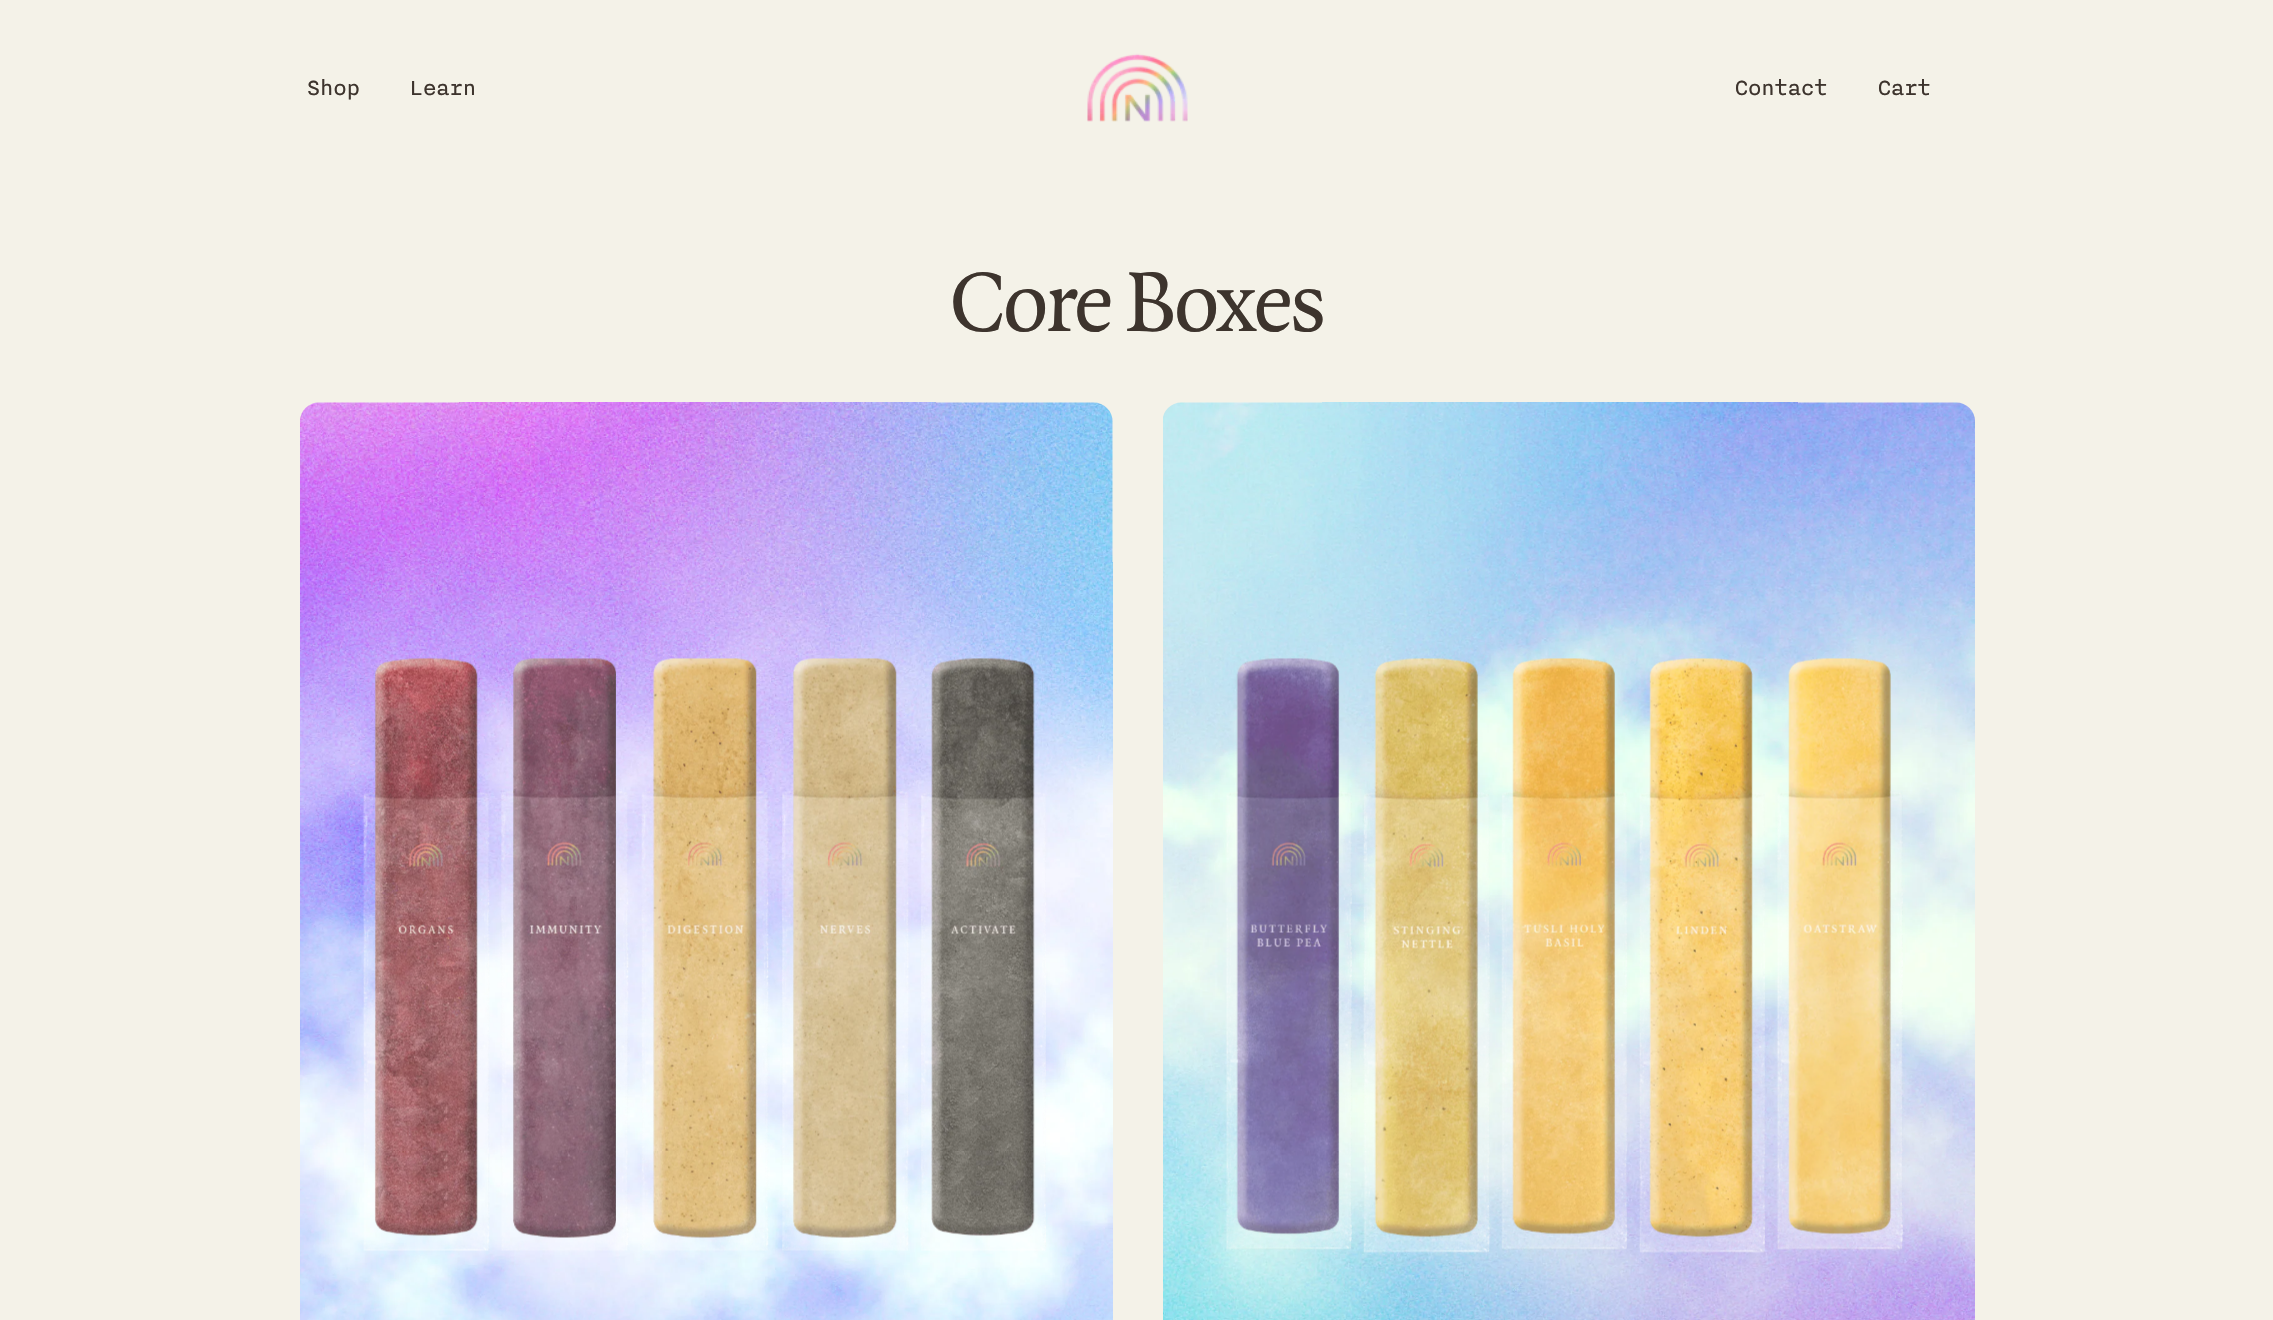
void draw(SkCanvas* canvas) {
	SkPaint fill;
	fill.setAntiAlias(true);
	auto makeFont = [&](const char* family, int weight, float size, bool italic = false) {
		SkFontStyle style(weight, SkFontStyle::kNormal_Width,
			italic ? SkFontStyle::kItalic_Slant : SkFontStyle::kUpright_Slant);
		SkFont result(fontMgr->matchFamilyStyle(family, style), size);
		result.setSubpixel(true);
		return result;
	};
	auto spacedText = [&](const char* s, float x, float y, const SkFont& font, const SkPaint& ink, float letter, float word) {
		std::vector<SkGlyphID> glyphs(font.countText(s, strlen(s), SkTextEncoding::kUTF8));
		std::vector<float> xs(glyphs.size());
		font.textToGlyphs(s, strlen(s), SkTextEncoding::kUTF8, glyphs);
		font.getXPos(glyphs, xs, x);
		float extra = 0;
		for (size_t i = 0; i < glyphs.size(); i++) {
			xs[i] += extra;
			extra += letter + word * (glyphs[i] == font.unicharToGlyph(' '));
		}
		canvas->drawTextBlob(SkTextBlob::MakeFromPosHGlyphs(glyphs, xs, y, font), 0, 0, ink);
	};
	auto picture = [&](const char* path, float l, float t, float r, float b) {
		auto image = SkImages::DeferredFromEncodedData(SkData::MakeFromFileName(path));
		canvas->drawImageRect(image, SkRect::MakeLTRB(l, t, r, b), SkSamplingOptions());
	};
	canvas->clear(0xFFF4F2E8);
	picture("image0.png", 1087, 53, 1188, 122);
	picture("image1.png", 300, 402, 1113, 1320);
	picture("image2.png", 363, 658, 1046, 1251);
	picture("image3.png", 1163, 402, 1975, 1320);
	picture("image4.png", 1226, 658, 1903, 1253);
	auto font1 = makeFont("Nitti", 400, 25);
	fill.setColor(0xFF3D342D);
	spacedText("Shop", 306, 95, font1, fill, -1.75f, 0);
	spacedText("Learn", 409, 95, font1, fill, -1.75f, 0);
	spacedText("Contact", 1734, 95, font1, fill, -1.75f, 0);
	spacedText("Cart", 1877, 95, font1, fill, -1.75f, 0);
	auto font2 = makeFont("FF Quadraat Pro", 400, 90);
	spacedText("Core Boxes", 950, 331, font2, fill, -3.75f, 0);
}
